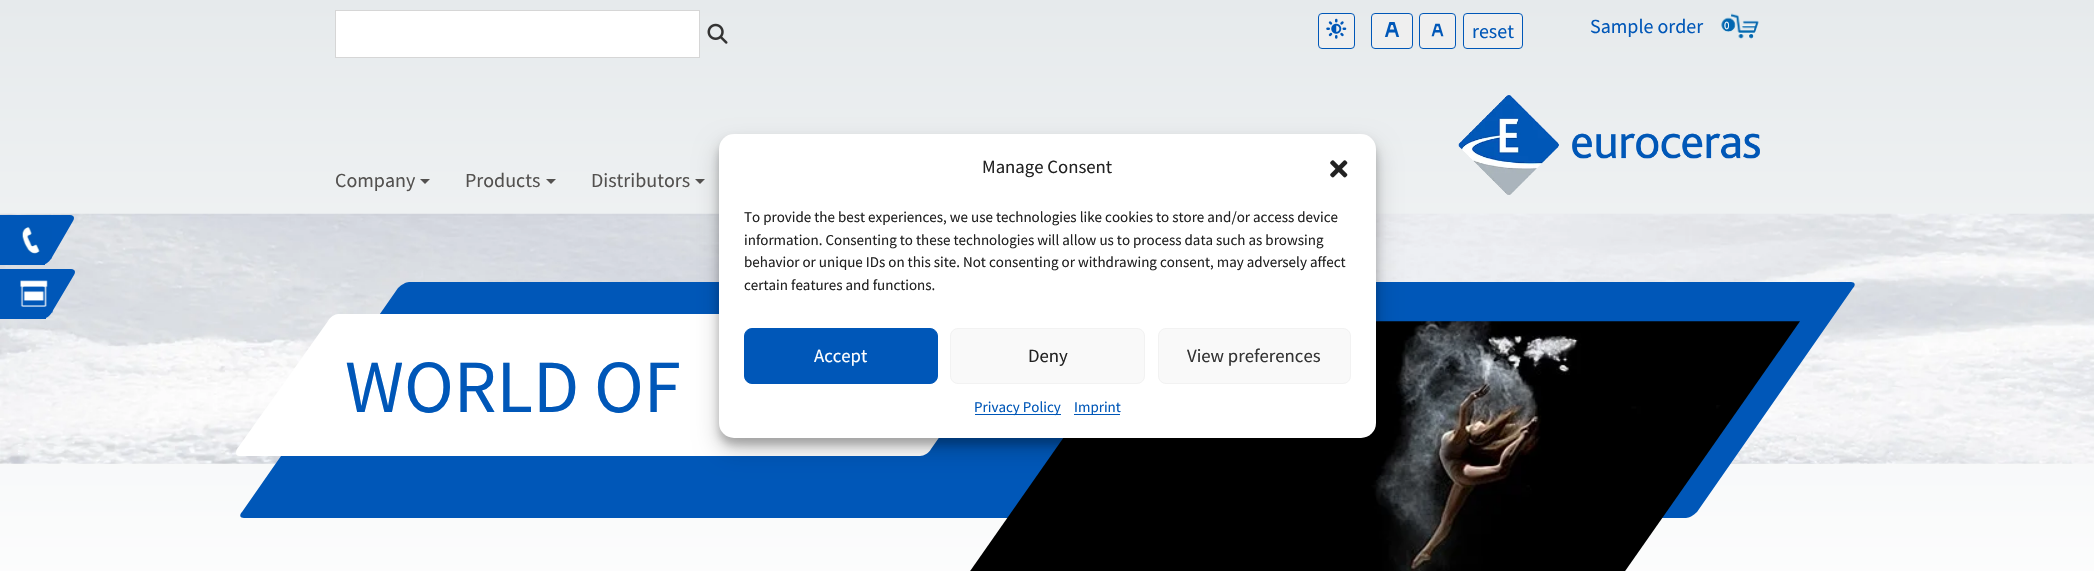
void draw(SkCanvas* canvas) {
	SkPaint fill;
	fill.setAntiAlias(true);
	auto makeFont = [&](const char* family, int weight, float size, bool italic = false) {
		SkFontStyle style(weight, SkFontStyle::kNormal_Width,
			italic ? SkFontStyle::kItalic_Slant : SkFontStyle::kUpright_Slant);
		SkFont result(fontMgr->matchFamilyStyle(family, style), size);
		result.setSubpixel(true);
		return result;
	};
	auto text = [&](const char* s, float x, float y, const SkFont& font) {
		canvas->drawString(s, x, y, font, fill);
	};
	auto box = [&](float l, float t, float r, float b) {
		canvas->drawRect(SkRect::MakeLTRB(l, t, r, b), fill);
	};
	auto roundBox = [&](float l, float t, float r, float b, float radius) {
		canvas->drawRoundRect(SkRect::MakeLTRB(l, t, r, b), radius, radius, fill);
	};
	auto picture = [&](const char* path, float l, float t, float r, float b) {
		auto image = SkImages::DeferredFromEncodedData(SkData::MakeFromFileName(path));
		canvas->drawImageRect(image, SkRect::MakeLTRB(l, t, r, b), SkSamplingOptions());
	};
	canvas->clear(0xFFFFFFFF);
	{
		const SkColor colors[] = {0xFFE6EAEC, 0xFFFFFFFF};
		const float stops[] = {0, 0.7f};
		const SkPoint ends[] = {{1048, 0}, {1048, 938}};
		fill.setShader(SkGradientShader::MakeLinear(ends, colors, stops, 2, SkTileMode::kClamp));
		fill.setAlpha(255);
	}
	box(0, 0, 2094, 571);
	fill.setShader(nullptr);
	fill.setColor(0xFFFFFFFF);
	canvas->drawRect(SkRect::MakeLTRB(335.5f, 10.5f, 699.5f, 57.5f), fill);
	fill.setStyle(SkPaint::kStroke_Style);
	fill.setStrokeWidth(1);
	fill.setColor(0xFFD6D6D6);
	canvas->drawRect(SkRect::MakeLTRB(335.5f, 10.5f, 699.5f, 57.5f), fill);
	picture("image0.png", 707, 23, 728, 44);
	fill.setStyle(SkPaint::kFill_Style);
	fill.setColor(0xFFEFEFEF);
	canvas->drawRoundRect(SkRect::MakeLTRB(1318.5f, 13.5f, 1354.5f, 48.5f), 3.5f, 3.5f, fill);
	fill.setStyle(SkPaint::kStroke_Style);
	fill.setColor(0xFF0057B8);
	canvas->drawRoundRect(SkRect::MakeLTRB(1318.5f, 13.5f, 1354.5f, 48.5f), 3.5f, 3.5f, fill);
	picture("image1.png", 1326, 18, 1347, 39);
	fill.setStyle(SkPaint::kFill_Style);
	fill.setColor(0xFFEFEFEF);
	canvas->drawRoundRect(SkRect::MakeLTRB(1371.5f, 13.5f, 1412.5f, 48.5f), 3.5f, 3.5f, fill);
	fill.setStyle(SkPaint::kStroke_Style);
	fill.setColor(0xFF0057B8);
	canvas->drawRoundRect(SkRect::MakeLTRB(1371.5f, 13.5f, 1412.5f, 48.5f), 3.5f, 3.5f, fill);
	picture("image2.png", 1384, 22, 1400, 37);
	fill.setStyle(SkPaint::kFill_Style);
	fill.setColor(0xFFEFEFEF);
	canvas->drawRoundRect(SkRect::MakeLTRB(1419.5f, 13.5f, 1455.5f, 48.5f), 3.5f, 3.5f, fill);
	fill.setStyle(SkPaint::kStroke_Style);
	fill.setColor(0xFF0057B8);
	canvas->drawRoundRect(SkRect::MakeLTRB(1419.5f, 13.5f, 1455.5f, 48.5f), 3.5f, 3.5f, fill);
	picture("image3.png", 1431, 23, 1444, 37);
	fill.setStyle(SkPaint::kFill_Style);
	fill.setColor(0xFFEFEFEF);
	canvas->drawRoundRect(SkRect::MakeLTRB(1463.5f, 13.5f, 1522.5f, 48.5f), 3.5f, 3.5f, fill);
	fill.setStyle(SkPaint::kStroke_Style);
	fill.setColor(0xFF0057B8);
	canvas->drawRoundRect(SkRect::MakeLTRB(1463.5f, 13.5f, 1522.5f, 48.5f), 3.5f, 3.5f, fill);
	picture("image4.png", 1721, 13, 1759, 39);
	picture("image5.png", 1458, 95, 1760, 195);
	picture("image8.png", 0, 213, 2094, 464);
	fill.setStyle(SkPaint::kFill_Style);
	box(41, 264, 45, 265);
	canvas->drawPath(SkPathBuilder().moveTo(-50, 215).lineTo(70, 215).cubicTo(74, 215, 75, 218, 73, 221).lineTo(51, 259).cubicTo(49, 262, 45, 265, 41, 265).lineTo(-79, 265).cubicTo(-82, 265, -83, 262, -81, 259).lineTo(-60, 221).cubicTo(-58, 218, -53, 215, -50, 215).close().detach(), fill);
	picture("image6.png", 22, 227, 52, 259);
	box(42, 318, 46, 319);
	canvas->drawPath(SkPathBuilder().moveTo(-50, 269).lineTo(71, 269).cubicTo(75, 269, 76, 272, 74, 275).lineTo(52, 312).cubicTo(50, 316, 46, 319, 42, 319).lineTo(-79, 319).cubicTo(-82, 319, -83, 316, -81, 312).lineTo(-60, 275).cubicTo(-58, 272, -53, 269, -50, 269).close().detach(), fill);
	picture("image7.png", 20, 280, 53, 313);
	fill.setColor(0xFF53514F);
	canvas->drawPath(SkPathBuilder().moveTo(420, 179).lineTo(430, 179).lineTo(425, 184).close().detach(), fill);
	canvas->drawPath(SkPathBuilder().moveTo(546, 179).lineTo(556, 179).lineTo(551, 184).close().detach(), fill);
	canvas->drawPath(SkPathBuilder().moveTo(695, 179).lineTo(705, 179).lineTo(700, 184).close().detach(), fill);
	fill.setColor(0xFF0057B8);
	canvas->drawPath(SkPathBuilder().moveTo(409, 282).lineTo(1851, 282).cubicTo(1855, 282, 1856, 285, 1853, 288).lineTo(1697, 512).cubicTo(1694, 515, 1689, 518, 1686, 518).lineTo(244, 518).cubicTo(240, 518, 239, 515, 242, 512).lineTo(398, 288).cubicTo(401, 285, 406, 282, 409, 282).close().detach(), fill);
	fill.setColor(0xFFFFFFFF);
	canvas->drawPath(SkPathBuilder().moveTo(338, 314).lineTo(1019, 314).cubicTo(1023, 314, 1024, 317, 1021, 321).lineTo(931, 449).cubicTo(929, 453, 924, 456, 920, 456).lineTo(239, 456).cubicTo(236, 456, 235, 453, 237, 449).lineTo(328, 321).cubicTo(330, 317, 335, 314, 338, 314).close().detach(), fill);
	picture("image9.png", 970, 321, 1800, 571);
	fill.setColor(0x3B000000);
	fill.setMaskFilter(SkMaskFilter::MakeBlur(kNormal_SkBlurStyle, 4));
	canvas->drawRoundRect(SkRect::MakeLTRB(719, 141, 1376, 445), 15, 15, fill);
	fill.setMaskFilter(nullptr);
	fill.setColor(0x30000000);
	fill.setMaskFilter(SkMaskFilter::MakeBlur(kNormal_SkBlurStyle, 12.5f));
	canvas->drawRoundRect(SkRect::MakeLTRB(719, 146, 1376, 450), 15, 15, fill);
	fill.setMaskFilter(nullptr);
	fill.setColor(0xFFFFFFFF);
	roundBox(719, 134, 1376, 438, 15);
	picture("image10.png", 1330, 160, 1348, 178);
	fill.setColor(0xFF0057B8);
	canvas->drawRoundRect(SkRect::MakeLTRB(744.5f, 328.5f, 937.5f, 383.5f), 7.5f, 7.5f, fill);
	fill.setStyle(SkPaint::kStroke_Style);
	canvas->drawRoundRect(SkRect::MakeLTRB(744.5f, 328.5f, 937.5f, 383.5f), 7.5f, 7.5f, fill);
	fill.setStyle(SkPaint::kFill_Style);
	fill.setColor(0xFFF9F9F9);
	canvas->drawRoundRect(SkRect::MakeLTRB(950.5f, 328.5f, 1144.5f, 383.5f), 7.5f, 7.5f, fill);
	fill.setStyle(SkPaint::kStroke_Style);
	fill.setColor(0xFFF2F2F2);
	canvas->drawRoundRect(SkRect::MakeLTRB(950.5f, 328.5f, 1144.5f, 383.5f), 7.5f, 7.5f, fill);
	fill.setStyle(SkPaint::kFill_Style);
	fill.setColor(0xFFF9F9F9);
	canvas->drawRoundRect(SkRect::MakeLTRB(1158.5f, 328.5f, 1350.5f, 383.5f), 7.5f, 7.5f, fill);
	fill.setStyle(SkPaint::kStroke_Style);
	fill.setColor(0xFFF2F2F2);
	canvas->drawRoundRect(SkRect::MakeLTRB(1158.5f, 328.5f, 1350.5f, 383.5f), 7.5f, 7.5f, fill);
	fill.setStyle(SkPaint::kFill_Style);
	fill.setColor(0xFF0057B8);
	box(975, 414, 1061, 415);
	box(1074, 414, 1120, 415);
	auto font1 = makeFont("Source Sans Pro", 400, 20);
	text("reset", 1472, 38, font1);
	text("Sample order", 1590, 33, font1);
	auto font2 = makeFont("Source Sans Pro", 400, 11);
	fill.setColor(0xFFFFFFFF);
	text("0", 1724, 29, font2);
	fill.setColor(0xFF53514F);
	text("Company", 335, 187, font1);
	text("Products", 465, 187, font1);
	text("Distributors", 591, 187, font1);
	auto font3 = makeFont("Source Sans Pro", 400, 75);
	fill.setColor(0xFF0057B8);
	text("WORLD OF", 345, 412, font3);
	auto font4 = makeFont("Source Sans Pro", 400, 18.75f);
	fill.setColor(0xFF222222);
	text("Manage Consent", 982, 173, font4);
	auto font5 = makeFont("Source Sans Pro", 400, 15);
	text("To provide the best experiences, we use technologies like cookies to store and/or access device", 744, 222, font5);
	text("information. Consenting to these technologies will allow us to process data such as browsing", 744, 245, font5);
	text("behavior or unique IDs on this site. Not consenting or withdrawing consent, may adversely affect", 744, 267, font5);
	text("certain features and functions.", 744, 290, font5);
	fill.setColor(0xFFFFFFFF);
	text("Accept", 814, 362, font4);
	fill.setColor(0xFF222222);
	text("Deny", 1028, 362, font4);
	fill.setColor(0xFF333333);
	text("View preferences", 1187, 362, font4);
	fill.setColor(0xFF0057B8);
	text("Privacy Policy", 974, 412, font5);
	text("Imprint", 1074, 412, font5);
}
